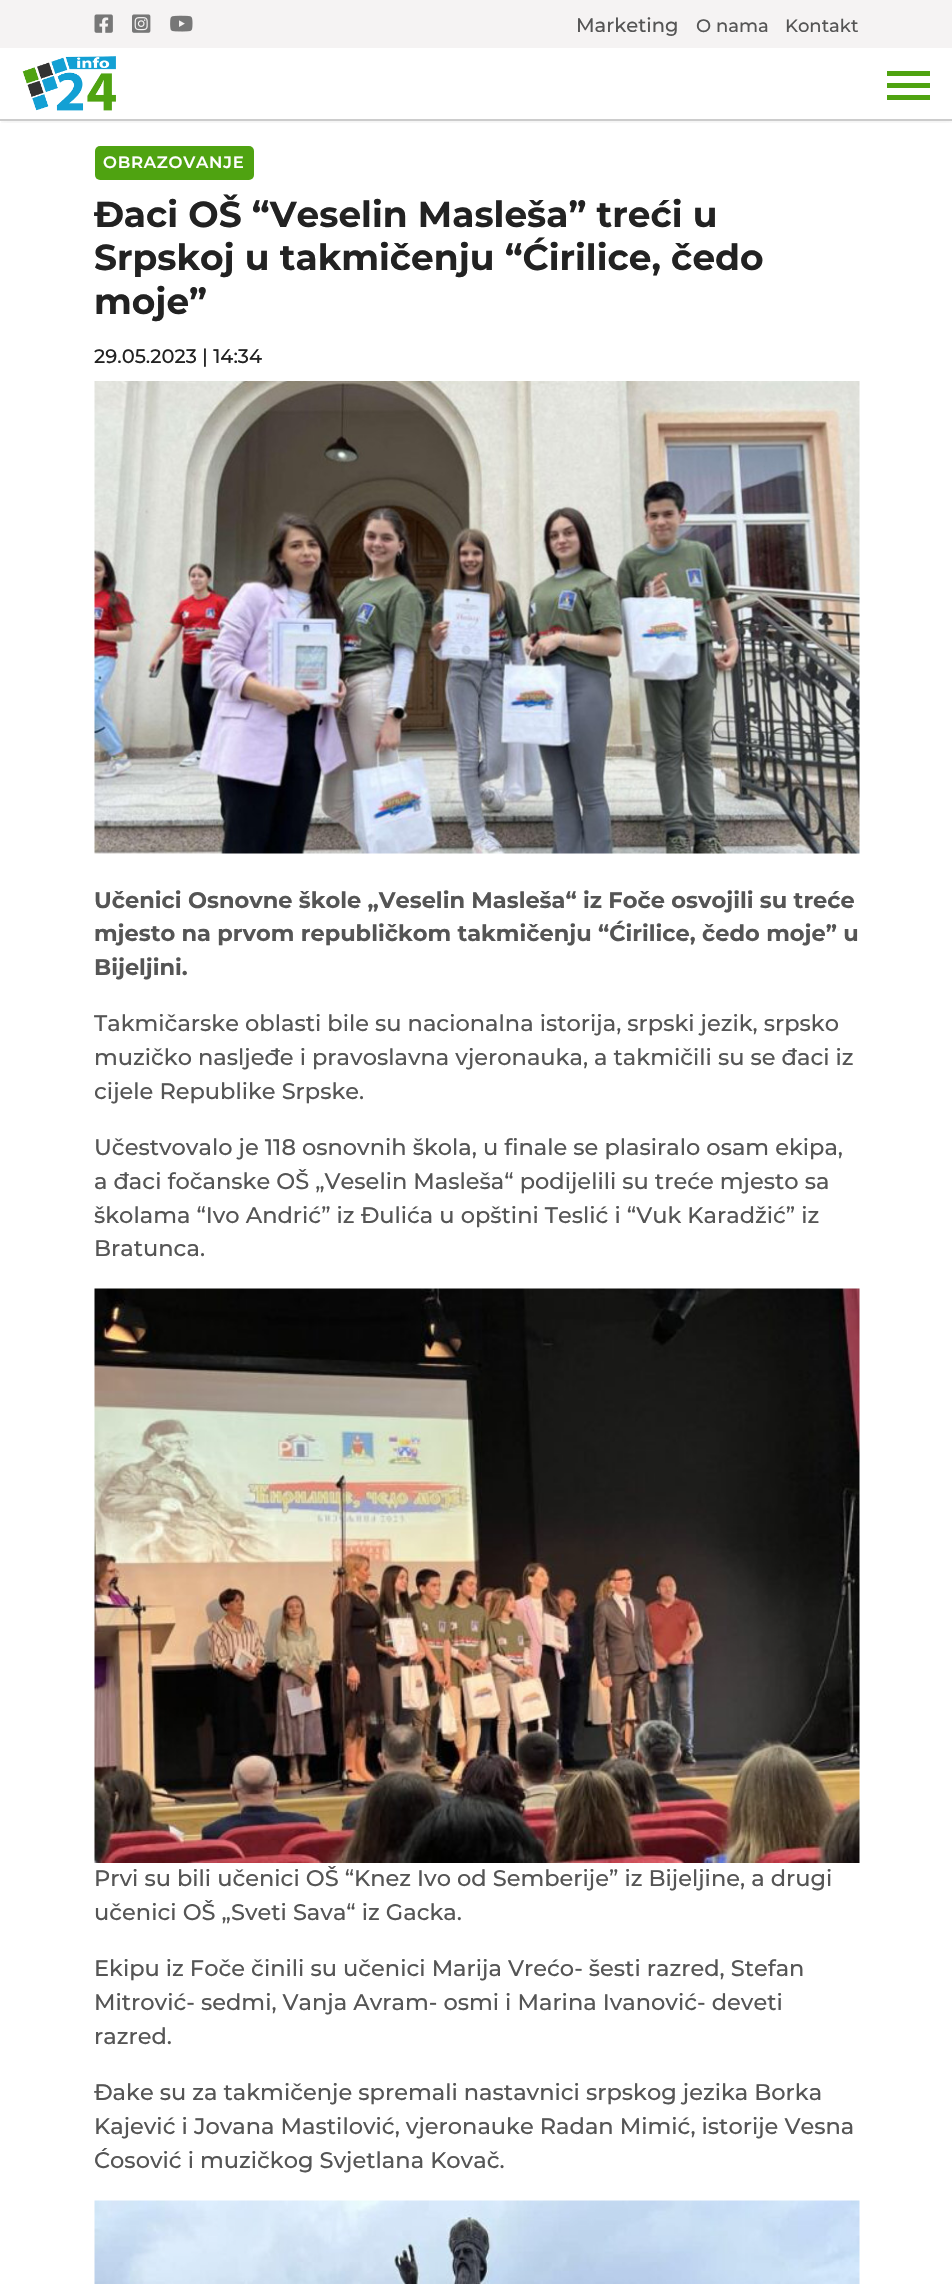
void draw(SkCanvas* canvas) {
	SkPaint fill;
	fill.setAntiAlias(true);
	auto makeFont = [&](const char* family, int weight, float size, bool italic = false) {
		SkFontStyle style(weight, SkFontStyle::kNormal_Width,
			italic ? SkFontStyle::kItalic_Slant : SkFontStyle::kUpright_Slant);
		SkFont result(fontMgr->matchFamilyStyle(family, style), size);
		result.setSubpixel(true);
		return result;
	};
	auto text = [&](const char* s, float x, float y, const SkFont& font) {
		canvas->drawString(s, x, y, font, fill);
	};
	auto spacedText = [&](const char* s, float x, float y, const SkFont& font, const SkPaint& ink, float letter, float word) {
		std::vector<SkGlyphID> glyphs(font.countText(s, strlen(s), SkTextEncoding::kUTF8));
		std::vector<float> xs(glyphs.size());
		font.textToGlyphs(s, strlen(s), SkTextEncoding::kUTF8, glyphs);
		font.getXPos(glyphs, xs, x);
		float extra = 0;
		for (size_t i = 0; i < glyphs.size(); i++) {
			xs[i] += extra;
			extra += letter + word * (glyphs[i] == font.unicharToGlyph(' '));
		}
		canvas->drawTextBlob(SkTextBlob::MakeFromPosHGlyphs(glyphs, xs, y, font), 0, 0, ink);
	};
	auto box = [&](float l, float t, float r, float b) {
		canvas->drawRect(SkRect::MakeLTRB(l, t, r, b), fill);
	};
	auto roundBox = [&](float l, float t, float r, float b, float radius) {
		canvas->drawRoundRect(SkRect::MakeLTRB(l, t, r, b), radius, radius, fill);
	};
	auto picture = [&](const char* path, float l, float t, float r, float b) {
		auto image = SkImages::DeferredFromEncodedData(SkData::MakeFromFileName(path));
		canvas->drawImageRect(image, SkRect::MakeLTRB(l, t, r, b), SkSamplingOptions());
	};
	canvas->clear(0xFFFFFFFF);
	canvas->save();
	canvas->clipRect(SkRect::MakeLTRB(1, 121, 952, 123));
	fill.setColor(0x1A000000);
	fill.setMaskFilter(SkMaskFilter::MakeBlur(kNormal_SkBlurStyle, 4));
	canvas->drawRect(SkRect::MakeLTRB(0, 0, 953, 120), fill);
	fill.setMaskFilter(nullptr);
	canvas->restore();
	fill.setColor(0xFFCCCCCC);
	box(0, 119, 952, 121);
	fill.setColor(0xFFF5F3F3);
	box(0, 0, 952, 48);
	picture("image0.png", 94, 14, 113, 33);
	picture("image1.png", 132, 14, 151, 33);
	picture("image2.png", 170, 15, 193, 32);
	picture("image3.png", 22, 56, 116, 111);
	fill.setColor(0xFF4FA311);
	box(887, 71, 930, 76);
	box(887, 83, 930, 88);
	box(887, 95, 930, 100);
	roundBox(95, 146, 254, 180, 5);
	picture("image4.png", 94, 381, 860, 854);
	picture("image5.png", 94, 1288, 860, 1863);
	picture("image6.png", 94, 2200, 860, 2284);
	auto font1 = makeFont("Montserrat", 500, 19.5f);
	fill.setColor(0xFF555555);
	text("Marketing", 576, 32, font1);
	auto font2 = makeFont("Montserrat", 500, 18);
	text("O nama", 696, 32, font2);
	text("Kontakt", 785, 32, font2);
	auto font3 = makeFont("Montserrat", 600, 16.5f);
	fill.setColor(0xFFFFFFFF);
	spacedText("OBRAZOVANJE", 103, 168, font3, fill, 0.75f, 0);
	auto font4 = makeFont("Montserrat", 700, 36);
	fill.setColor(0xFF222222);
	text("Đaci OŠ “Veselin Masleša” treći u", 94, 227, font4);
	text("Srpskoj u takmičenju “Ćirilice, čedo", 94, 270, font4);
	text("moje”", 94, 314, font4);
	text("29.05.2023 | 14:34", 94, 363, font1);
	auto font5 = makeFont("Montserrat", 700, 22.5f);
	fill.setColor(0xFF555555);
	text("Učenici Osnovne škole „Veselin Masleša“ iz Foče osvojili su treće", 94, 908, font5);
	text("mjesto na prvom republičkom takmičenju “Ćirilice, čedo moje” u", 94, 941, font5);
	text("Bijeljini.", 94, 975, font5);
	auto font6 = makeFont("Montserrat", 500, 22.5f);
	text("Takmičarske oblasti bile su nacionalna istorija, srpski jezik, srpsko", 94, 1031, font6);
	text("muzičko nasljeđe i pravoslavna vjeronauka, a takmičili su se đaci iz", 94, 1065, font6);
	text("cijele Republike Srpske.", 94, 1099, font6);
	text("Učestvovalo je 118 osnovnih škola, u finale se plasiralo osam ekipa,", 94, 1155, font6);
	text("a đaci fočanske OŠ „Veselin Masleša“ podijelili su treće mjesto sa", 94, 1189, font6);
	text("školama “Ivo Andrić” iz Đulića u opštini Teslić i “Vuk Karadžić” iz", 94, 1223, font6);
	text("Bratunca.", 94, 1256, font6);
	text("Prvi su bili učenici OŠ “Knez Ivo od Semberije” iz Bijeljine, a drugi", 94, 1886, font6);
	text("učenici OŠ „Sveti Sava“ iz Gacka.", 94, 1920, font6);
	text("Ekipu iz Foče činili su učenici Marija Vrećo- šesti razred, Stefan", 94, 1976, font6);
	text("Mitrović- sedmi, Vanja Avram- osmi i Marina Ivanović- deveti", 94, 2010, font6);
	text("razred.", 94, 2044, font6);
	text("Đake su za takmičenje spremali nastavnici srpskog jezika Borka", 94, 2100, font6);
	text("Kajević i Jovana Mastilović, vjeronauke Radan Mimić, istorije Vesna", 94, 2134, font6);
	text("Ćosović i muzičkog Svjetlana Kovač.", 94, 2168, font6);
}
